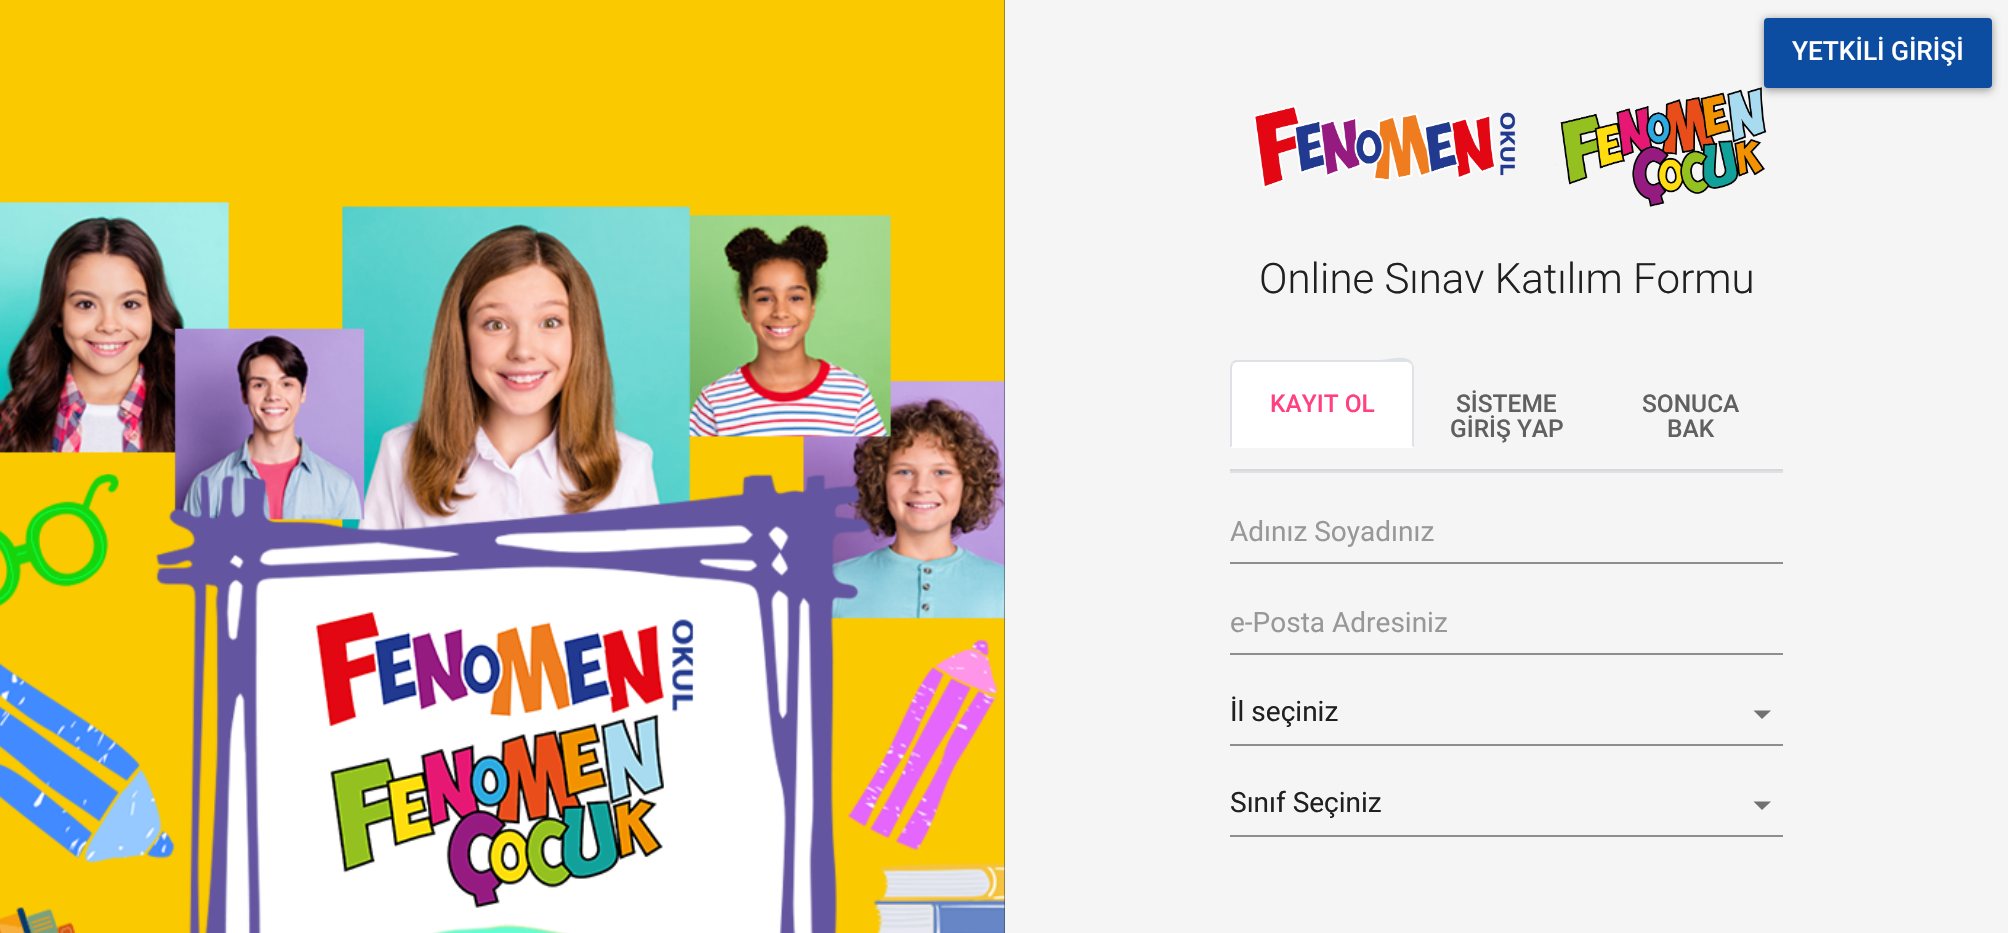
void draw(SkCanvas* canvas) {
	SkPaint fill;
	fill.setAntiAlias(true);
	auto makeFont = [&](const char* family, int weight, float size, bool italic = false) {
		SkFontStyle style(weight, SkFontStyle::kNormal_Width,
			italic ? SkFontStyle::kItalic_Slant : SkFontStyle::kUpright_Slant);
		SkFont result(fontMgr->matchFamilyStyle(family, style), size);
		result.setSubpixel(true);
		return result;
	};
	auto text = [&](const char* s, float x, float y, const SkFont& font) {
		canvas->drawString(s, x, y, font, fill);
	};
	auto box = [&](float l, float t, float r, float b) {
		canvas->drawRect(SkRect::MakeLTRB(l, t, r, b), fill);
	};
	auto roundBox = [&](float l, float t, float r, float b, float radius) {
		canvas->drawRoundRect(SkRect::MakeLTRB(l, t, r, b), radius, radius, fill);
	};
	auto picture = [&](const char* path, float l, float t, float r, float b) {
		auto image = SkImages::DeferredFromEncodedData(SkData::MakeFromFileName(path));
		canvas->drawImageRect(image, SkRect::MakeLTRB(l, t, r, b), SkSamplingOptions());
	};
	canvas->clear(0xFFF5F5F5);
	fill.setColor(0xFF2F3D4A);
	box(1004, 0, 1005, 933);
	picture("image0.png", 0, 0, 1005, 933);
	fill.setColor(0x33000000);
	fill.setMaskFilter(SkMaskFilter::MakeBlur(kNormal_SkBlurStyle, 4.5f));
	canvas->drawRoundRect(SkRect::MakeLTRB(1764, 19, 1992, 89), 4, 4, fill);
	fill.setMaskFilter(nullptr);
	fill.setColor(0x1F000000);
	fill.setMaskFilter(SkMaskFilter::MakeBlur(kNormal_SkBlurStyle, 3.5f));
	canvas->drawRoundRect(SkRect::MakeLTRB(1764, 23, 1992, 93), 4, 4, fill);
	fill.setMaskFilter(nullptr);
	fill.setColor(0x24000000);
	fill.setMaskFilter(SkMaskFilter::MakeBlur(kNormal_SkBlurStyle, 3.5f));
	canvas->drawRoundRect(SkRect::MakeLTRB(1764, 18, 1992, 88), 4, 4, fill);
	fill.setMaskFilter(nullptr);
	fill.setColor(0xFF0C4DA2);
	roundBox(1764, 18, 1992, 88, 4);
	picture("image1.png", 1253, 87, 1767, 207);
	canvas->save();
	canvas->clipRect(SkRect::MakeLTRB(1230, 361, 1783, 471));
	fill.setColor(0xFFD8D8D8);
	canvas->drawPath(SkPathBuilder(SkPathFillType::kEvenOdd).moveTo(1057, 187).lineTo(1956, 187).lineTo(1956, 644).lineTo(1057, 644).close().moveTo(1230, 355).lineTo(1783, 355).cubicTo(1784, 355, 1785, 356, 1785, 357).lineTo(1785, 467).cubicTo(1785, 468, 1784, 469, 1783, 469).lineTo(1230, 469).cubicTo(1229, 469, 1228, 468, 1228, 467).lineTo(1228, 357).cubicTo(1228, 356, 1229, 355, 1230, 355).close().detach(), fill);
	canvas->restore();
	fill.setColor(0xFFDEE2E6);
	box(1230, 471, 1783, 473);
	fill.setColor(0xFFFFFFFF);
	canvas->drawPath(SkPathBuilder().moveTo(1237, 361).lineTo(1407, 361).cubicTo(1411, 361, 1414, 364, 1414, 368).lineTo(1414, 448).lineTo(1230, 448).lineTo(1230, 368).cubicTo(1230, 364, 1233, 361, 1237, 361).close().detach(), fill);
	fill.setColor(0xFFDEE2E6);
	canvas->drawPath(SkPathBuilder().moveTo(1237, 362).cubicTo(1236, 362, 1234, 363, 1233, 364).lineTo(1232, 362).lineTo(1235, 360).lineTo(1380, 360).cubicTo(1391, 360, 1405, 354, 1412, 362).lineTo(1411, 364).cubicTo(1410, 363, 1408, 362, 1407, 362).close().detach(), fill);
	canvas->drawPath(SkPathBuilder().moveTo(1414, 448).lineTo(1414, 368).cubicTo(1414, 366, 1413, 364, 1412, 362).lineTo(1411, 364).cubicTo(1412, 365, 1412, 366, 1412, 368).lineTo(1412, 446).close().detach(), fill);
	fill.setColor(0xFFFFFFFF);
	canvas->drawPath(SkPathBuilder().moveTo(1414, 448).lineTo(1412, 446).lineTo(1232, 446).lineTo(1230, 448).close().detach(), fill);
	fill.setColor(0xFFDEE2E6);
	canvas->drawPath(SkPathBuilder().moveTo(1230, 448).lineTo(1230, 366).lineTo(1232, 362).lineTo(1233, 364).cubicTo(1233, 365, 1232, 366, 1232, 368).lineTo(1232, 446).close().detach(), fill);
	fill.setColor(0xFF8E8E8E);
	box(1230, 562, 1783, 564);
	box(1230, 653, 1783, 655);
	fill.setColor(0xFF717171);
	canvas->drawPath(SkPathBuilder().moveTo(1753.5f, 710.5f).lineTo(1762, 719).lineTo(1771, 710.5f).close().detach(), fill);
	fill.setColor(0xFF8E8E8E);
	box(1230, 744, 1783, 746);
	fill.setColor(0xFF717171);
	canvas->drawPath(SkPathBuilder().moveTo(1753.5f, 801.5f).lineTo(1762, 810).lineTo(1771, 801.5f).close().detach(), fill);
	fill.setColor(0xFF8E8E8E);
	box(1230, 835, 1783, 837);
	auto font1 = makeFont("Roboto", 500, 26.25f);
	fill.setColor(0xFFFFFFFF);
	text("YETKİLİ GİRİŞİ", 1792, 60, font1);
	auto font2 = makeFont("Roboto", 300, 42);
	fill.setColor(0xFF202020);
	text("Online Sınav Katılım Formu", 1259, 293, font2);
	auto font3 = makeFont("Roboto", 500, 24.5f);
	fill.setColor(0xFFFF4081);
	text("KAYIT OL", 1270, 412, font3);
	fill.setColor(0xFF606060);
	text("SİSTEME", 1456, 412, font3);
	text("GİRİŞ YAP", 1450, 437, font3);
	text("SONUCA", 1642, 412, font3);
	text("BAK", 1667, 437, font3);
	auto font4 = makeFont("Roboto", 400, 28);
	fill.setColor(0xFF989898);
	text("Adınız Soyadınız", 1230, 541, font4);
	text("e-Posta Adresiniz", 1230, 632, font4);
	fill.setColor(0xFF202020);
	text("İl seçiniz", 1230, 721, font4);
	text("Sınıf Seçiniz", 1230, 812, font4);
}
